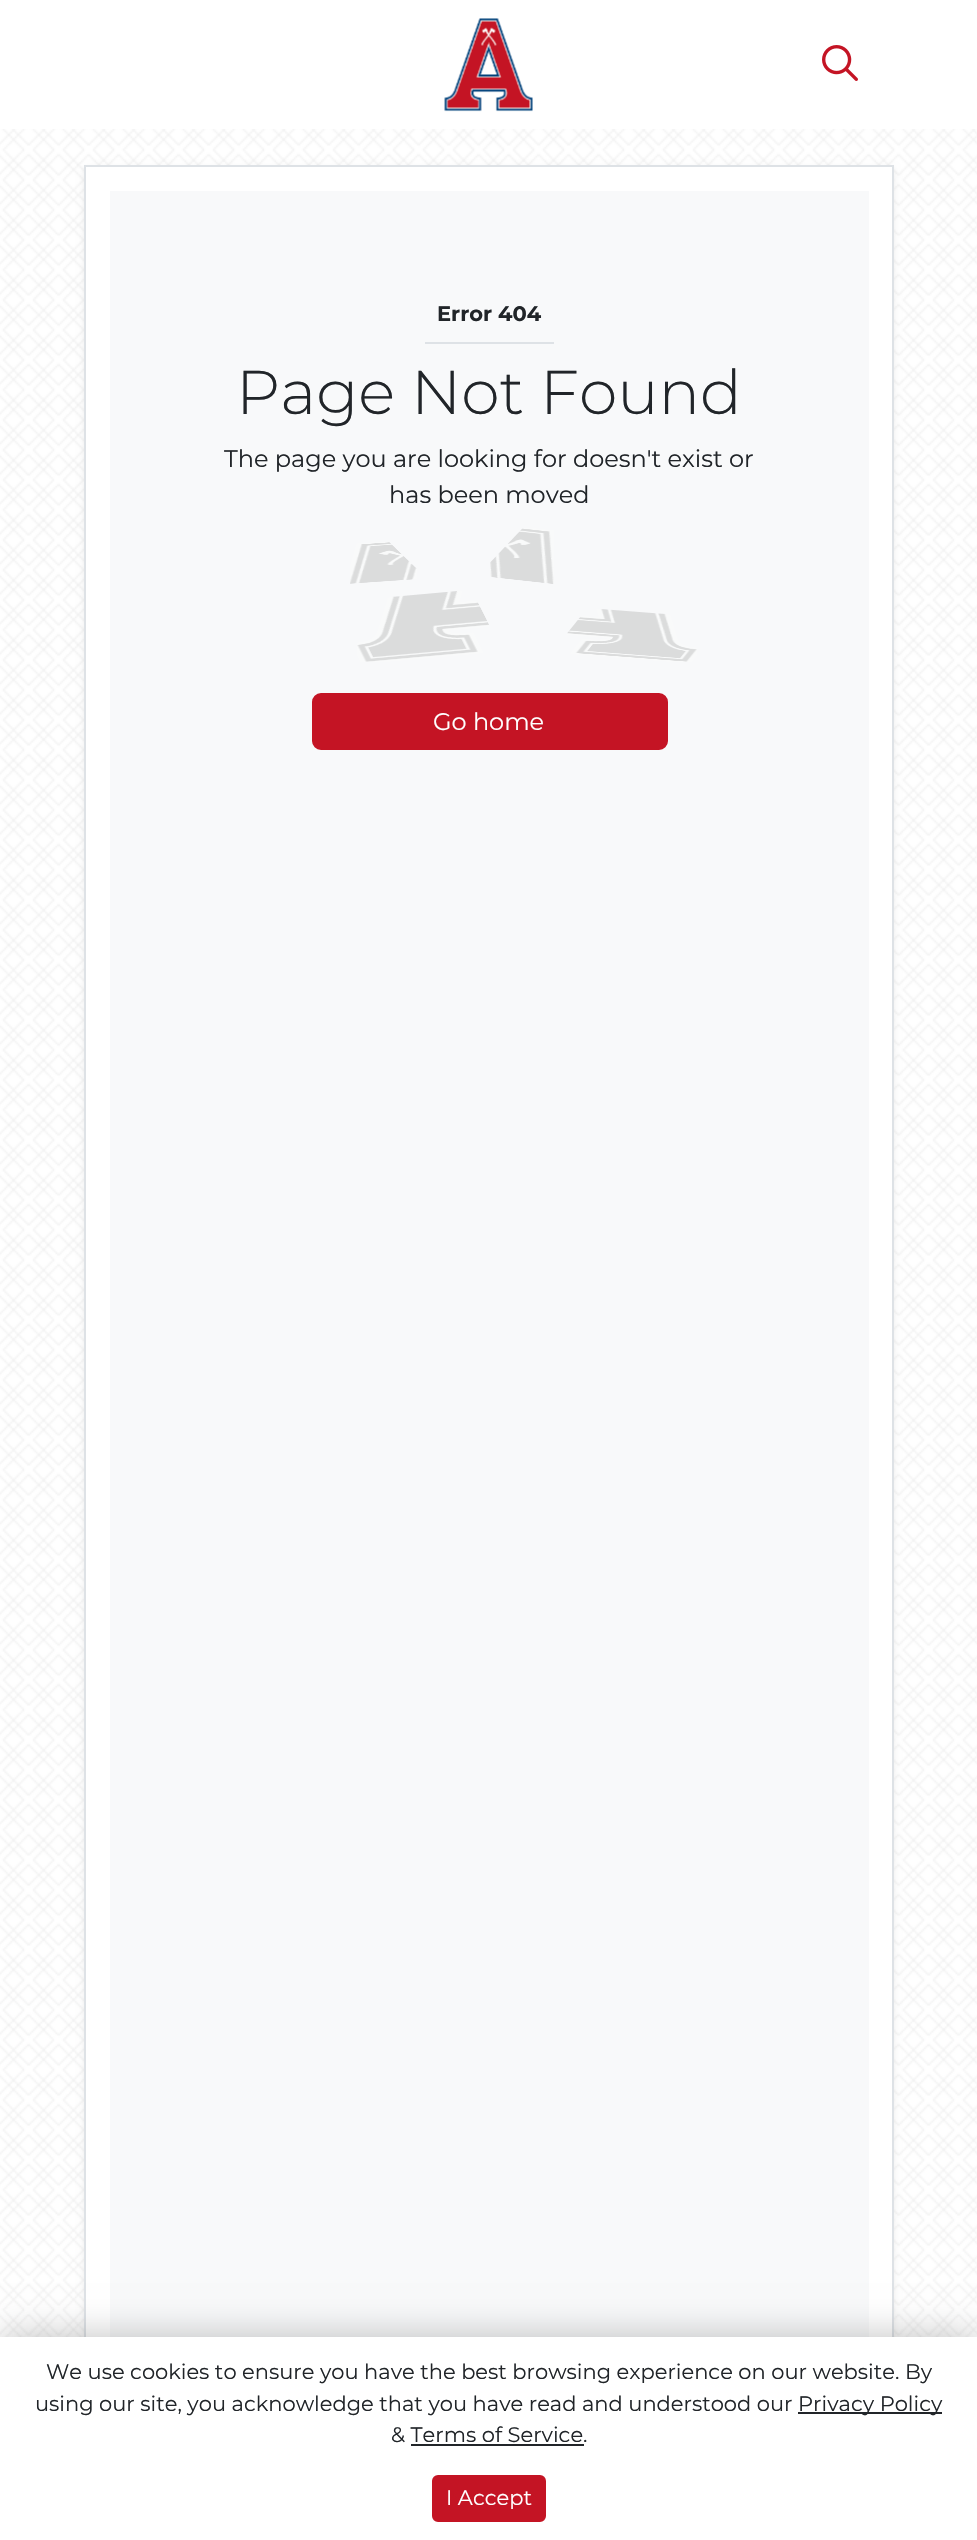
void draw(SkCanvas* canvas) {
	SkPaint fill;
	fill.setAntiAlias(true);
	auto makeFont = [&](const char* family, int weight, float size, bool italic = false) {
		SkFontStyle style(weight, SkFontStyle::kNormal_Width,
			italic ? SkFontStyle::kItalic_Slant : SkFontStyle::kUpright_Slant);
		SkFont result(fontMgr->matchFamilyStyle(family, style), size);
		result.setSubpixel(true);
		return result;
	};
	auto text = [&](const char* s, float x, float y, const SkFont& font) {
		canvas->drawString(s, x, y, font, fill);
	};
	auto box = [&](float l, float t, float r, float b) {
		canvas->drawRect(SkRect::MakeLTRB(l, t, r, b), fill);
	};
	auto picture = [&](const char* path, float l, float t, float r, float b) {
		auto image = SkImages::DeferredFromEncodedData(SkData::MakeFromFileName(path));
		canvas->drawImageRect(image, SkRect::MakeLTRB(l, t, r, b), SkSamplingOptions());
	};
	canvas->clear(0xFFFFFFFF);
	picture("image0.png", 0, 129, 977, 2337);
	picture("image1.png", 444, 18, 533, 112);
	picture("image2.png", 822, 45, 858, 81);
	fill.setColor(0x12000000);
	fill.setMaskFilter(SkMaskFilter::MakeBlur(kNormal_SkBlurStyle, 3));
	canvas->drawRect(SkRect::MakeLTRB(84, 168, 894, 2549), fill);
	fill.setMaskFilter(nullptr);
	fill.setColor(0xFFFFFFFF);
	box(86, 167, 892, 2337);
	fill.setStyle(SkPaint::kStroke_Style);
	fill.setStrokeWidth(2);
	fill.setColor(0xFFDEE2E6);
	canvas->drawRect(SkRect::MakeLTRB(85, 166, 893, 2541), fill);
	fill.setStyle(SkPaint::kFill_Style);
	fill.setColor(0xFFF8F9FA);
	box(110, 191, 869, 2337);
	fill.setColor(0xFFDEE2E6);
	box(425, 342, 554, 344);
	picture("image3.png", 350, 542, 417, 584);
	picture("image4.png", 490, 528, 554, 584);
	picture("image5.png", 357, 591, 489, 662);
	picture("image6.png", 567, 609, 697, 662);
	fill.setColor(0xFFC41424);
	canvas->drawRoundRect(SkRect::MakeLTRB(313, 694, 667, 749), 8, 8, fill);
	fill.setStyle(SkPaint::kStroke_Style);
	canvas->drawRoundRect(SkRect::MakeLTRB(313, 694, 667, 749), 8, 8, fill);
	fill.setStyle(SkPaint::kFill_Style);
	fill.setColor(0x40000000);
	fill.setMaskFilter(SkMaskFilter::MakeBlur(kNormal_SkBlurStyle, 18));
	canvas->drawRect(SkRect::MakeLTRB(0, 2337, 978, 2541), fill);
	fill.setMaskFilter(nullptr);
	fill.setColor(0xFFFFFFFF);
	box(0, 2337, 977, 2540);
	fill.setColor(0xFF212529);
	box(798, 2412, 942, 2414);
	box(411, 2444, 584, 2446);
	fill.setColor(0xFFC41424);
	canvas->drawRoundRect(SkRect::MakeLTRB(433, 2476, 545, 2521), 5, 5, fill);
	fill.setStyle(SkPaint::kStroke_Style);
	canvas->drawRoundRect(SkRect::MakeLTRB(433, 2476, 545, 2521), 5, 5, fill);
	auto font1 = makeFont("Montserrat", 700, 21);
	fill.setStyle(SkPaint::kFill_Style);
	fill.setColor(0xFF212529);
	text("Error 404", 437, 321, font1);
	auto font2 = makeFont("Montserrat", 300, 61.75f);
	text("Page Not Found", 236, 414, font2);
	auto font3 = makeFont("Montserrat", 400, 24);
	text("The page you are looking for doesn't exist or", 224, 467, font3);
	text("has been moved", 389, 503, font3);
	fill.setColor(0xFFFFFFFF);
	text("Go home", 433, 730, font3);
	auto font4 = makeFont("Montserrat", 400, 21);
	fill.setColor(0xFF212529);
	text("We use cookies to ensure you have the best browsing experience on our website. By", 46, 2379, font4);
	text("using our site, you acknowledge that you have read and understood our", 35, 2411, font4);
	text("Privacy Policy", 798, 2411, font4);
	text("& Terms of Service.", 391, 2442, font4);
	fill.setColor(0xFFFFFFFF);
	text("I Accept", 446, 2505, font4);
}
